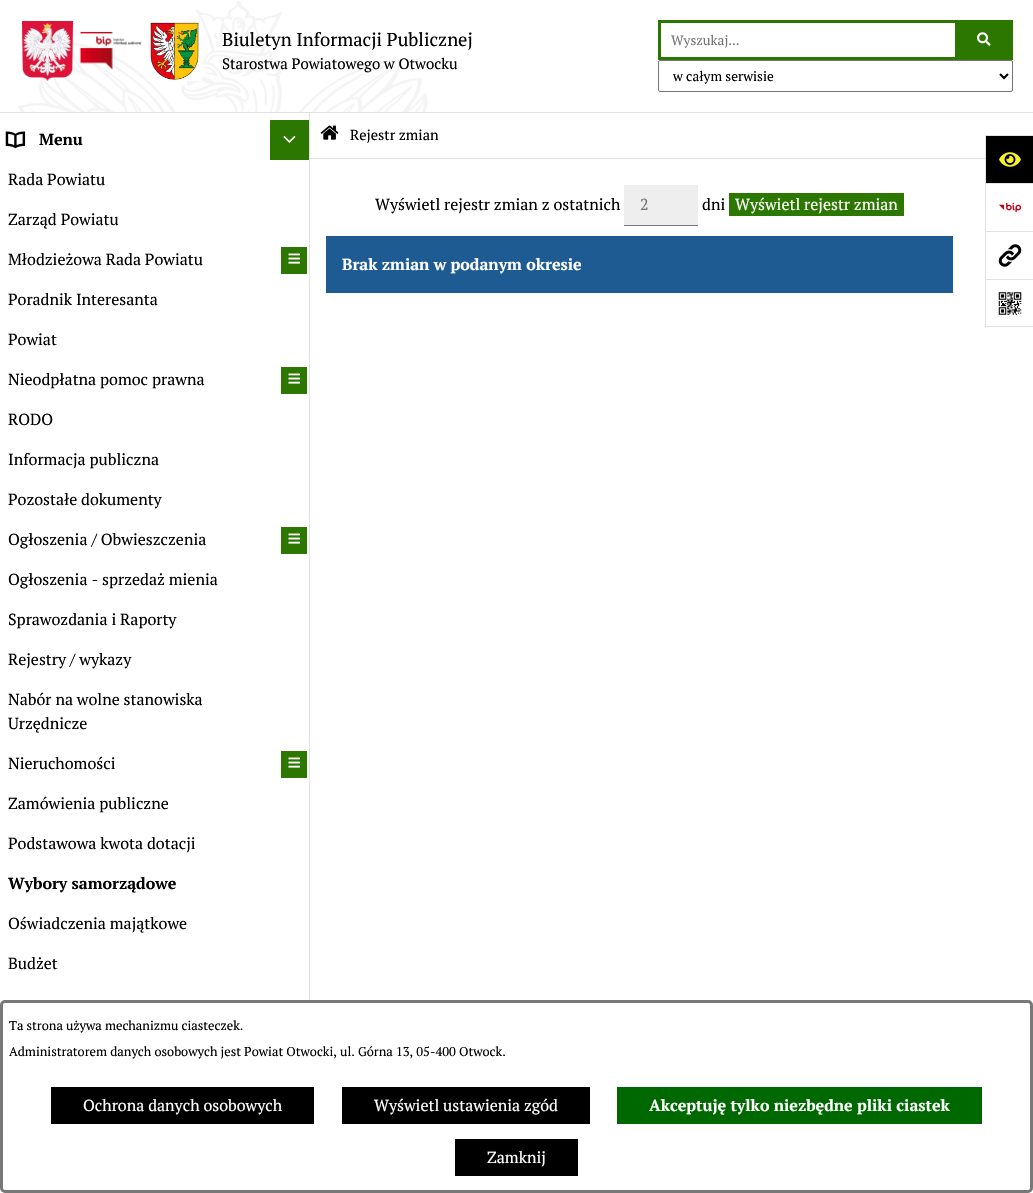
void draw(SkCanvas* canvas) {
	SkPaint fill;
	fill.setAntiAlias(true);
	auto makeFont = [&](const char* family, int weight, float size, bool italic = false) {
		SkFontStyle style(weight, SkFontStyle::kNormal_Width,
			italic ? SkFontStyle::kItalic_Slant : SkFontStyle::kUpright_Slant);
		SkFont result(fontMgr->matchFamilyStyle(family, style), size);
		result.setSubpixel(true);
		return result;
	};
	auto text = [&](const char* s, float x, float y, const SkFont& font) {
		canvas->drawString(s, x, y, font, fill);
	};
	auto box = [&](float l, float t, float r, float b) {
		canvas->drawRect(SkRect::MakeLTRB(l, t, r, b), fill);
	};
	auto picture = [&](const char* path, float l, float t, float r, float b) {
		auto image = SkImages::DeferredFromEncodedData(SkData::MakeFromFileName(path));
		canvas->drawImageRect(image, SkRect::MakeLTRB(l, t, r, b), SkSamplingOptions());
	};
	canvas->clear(0xFFFFFFFF);
	fill.setColor(0xFFE1E1E1);
	box(0, 112, 1033, 113);
	picture("image0.png", 18, 1, 428, 112);
	picture("image1.png", 22, 21, 73, 81);
	picture("image2.png", 79, 31, 142, 70);
	picture("image3.png", 147, 21, 202, 81);
	fill.setStyle(SkPaint::kStroke_Style);
	fill.setStrokeWidth(3);
	fill.setColor(0xFF2B7700);
	canvas->drawRect(SkRect::MakeLTRB(659.5f, 21.5f, 956.5f, 58.5f), fill);
	fill.setStyle(SkPaint::kFill_Style);
	box(958, 20, 1013, 60);
	picture("image4.png", 977, 32, 991, 46);
	fill.setStyle(SkPaint::kStroke_Style);
	fill.setStrokeWidth(1);
	fill.setColor(0xFF767676);
	canvas->drawRoundRect(SkRect::MakeLTRB(658.5f, 60.5f, 1012.5f, 91.5f), 1.5f, 1.5f, fill);
	fill.setStrokeWidth(2);
	fill.setColor(0xFF000000);
	canvas->drawPath(SkPathBuilder().moveTo(1000, 74).lineTo(1004, 78).lineTo(1008, 74).detach(), fill);
	picture("image5.png", 5, 131, 26, 149);
	fill.setStyle(SkPaint::kFill_Style);
	fill.setColor(0xFF2B7700);
	box(270, 120, 309, 160);
	picture("image6.png", 283, 136, 296, 143);
	box(281, 247, 307, 274);
	picture("image7.png", 288, 253, 300, 264);
	box(281, 367, 307, 394);
	picture("image7.png", 288, 373, 300, 384);
	box(281, 527, 307, 554);
	picture("image7.png", 288, 533, 300, 544);
	box(281, 751, 307, 778);
	picture("image7.png", 288, 757, 300, 768);
	fill.setColor(0xFFE1E1E1);
	box(309, 113, 310, 1000);
	fill.setColor(0xFF000000);
	box(986, 136, 1033, 183);
	fill.setColor(0xFFE1E1E1);
	box(985, 135, 1033, 136);
	box(985, 135, 986, 183);
	picture("image8.png", 999, 152, 1021, 167);
	box(985, 183, 1033, 184);
	box(985, 183, 986, 231);
	picture("image9.png", 999, 202, 1022, 213);
	box(985, 231, 1033, 232);
	box(985, 231, 986, 279);
	picture("image10.png", 998, 244, 1022, 267);
	box(985, 279, 1033, 280);
	box(985, 326, 1033, 327);
	box(985, 279, 986, 327);
	picture("image11.png", 998, 292, 1022, 315);
	box(310, 158, 985, 159);
	picture("image12.png", 320, 125, 339, 140);
	fill.setColor(0xFFEEEEEE);
	box(624, 185, 698, 225);
	fill.setColor(0xFF767676);
	box(624, 225, 698, 226);
	fill.setColor(0xFF2B7700);
	box(729, 193, 904, 216);
	fill.setColor(0xFF1D5B92);
	box(326, 236, 953, 293);
	fill.setStyle(SkPaint::kStroke_Style);
	fill.setStrokeWidth(3);
	fill.setColor(0xFF787878);
	canvas->drawRoundRect(SkRect::MakeLTRB(1.5f, 1001.5f, 1031.5f, 1191.5f), 3.5f, 3.5f, fill);
	fill.setStyle(SkPaint::kFill_Style);
	fill.setColor(0xFF000000);
	box(51, 1087, 314, 1124);
	box(342, 1087, 590, 1124);
	fill.setColor(0xFF006800);
	box(617, 1087, 982, 1124);
	fill.setColor(0xFF000000);
	box(455, 1139, 578, 1176);
	auto font1 = makeFont("PT Serif", 400, 18.5f);
	text("Biuletyn Informacji Publicznej", 222, 46, font1);
	auto font2 = makeFont("PT Serif", 400, 15);
	text("Starostwa Powiatowego w Otwocku", 222, 69, font2);
	auto font3 = makeFont("PT Serif", 400, 13.5f);
	fill.setColor(0xFF757575);
	text("Wyszukaj...", 671, 45, font3);
	fill.setColor(0xFF000000);
	text("w całym serwisie", 673, 81, font3);
	auto font4 = makeFont("PT Serif", 700, 16);
	text("Menu", 39, 145, font4);
	auto font5 = makeFont("PT Serif", 400, 16);
	text("Rada Powiatu", 8, 185, font5);
	text("Zarząd Powiatu", 8, 225, font5);
	text("Młodzieżowa Rada Powiatu", 8, 265, font5);
	text("Poradnik Interesanta", 8, 305, font5);
	text("Powiat", 8, 345, font5);
	text("Nieodpłatna pomoc prawna", 8, 385, font5);
	text("RODO", 8, 425, font5);
	text("Informacja publiczna", 8, 465, font5);
	text("Pozostałe dokumenty", 8, 505, font5);
	text("Ogłoszenia / Obwieszczenia", 8, 545, font5);
	text("Ogłoszenia - sprzedaż mienia", 8, 585, font5);
	text("Sprawozdania i Raporty", 8, 625, font5);
	text("Rejestry / wykazy", 8, 665, font5);
	text("Nabór na wolne stanowiska", 8, 705, font5);
	text("Urzędnicze", 8, 729, font5);
	text("Nieruchomości", 8, 769, font5);
	text("Zamówienia publiczne", 8, 809, font5);
	text("Podstawowa kwota dotacji", 8, 849, font5);
	text("Wybory samorządowe", 8, 889, font4);
	text("Oświadczenia majątkowe", 8, 929, font5);
	text("Budżet", 8, 969, font5);
	auto font6 = makeFont("PT Serif", 400, 14.5f);
	text("Rejestr zmian", 350, 140, font6);
	text("Wyświetl rejestr zmian z ostatnich", 375, 210, font5);
	fill.setColor(0xFF757575);
	text("2", 640, 210, font5);
	fill.setColor(0xFF000000);
	text("dni", 702, 210, font5);
	fill.setColor(0xFFFFFFFF);
	text("Wyświetl rejestr zmian", 735, 210, font5);
	text("Brak zmian w podanym okresie", 342, 270, font4);
	auto font7 = makeFont("PT Serif", 400, 12.8f);
	fill.setColor(0xFF000000);
	text("Ta strona używa mechanizmu ciasteczek.", 9, 1030, font7);
	text("Administratorem danych osobowych jest Powiat Otwocki, ul. Górna 13, 05-400 Otwock.", 9, 1056, font7);
	fill.setColor(0xFFFFFFFF);
	text("Ochrona danych osobowych", 83, 1111, font5);
	text("Wyświetl ustawienia zgód", 374, 1111, font5);
	text("Akceptuję tylko niezbędne pliki ciastek", 649, 1111, font4);
	text("Zamknij", 487, 1163, font5);
}
